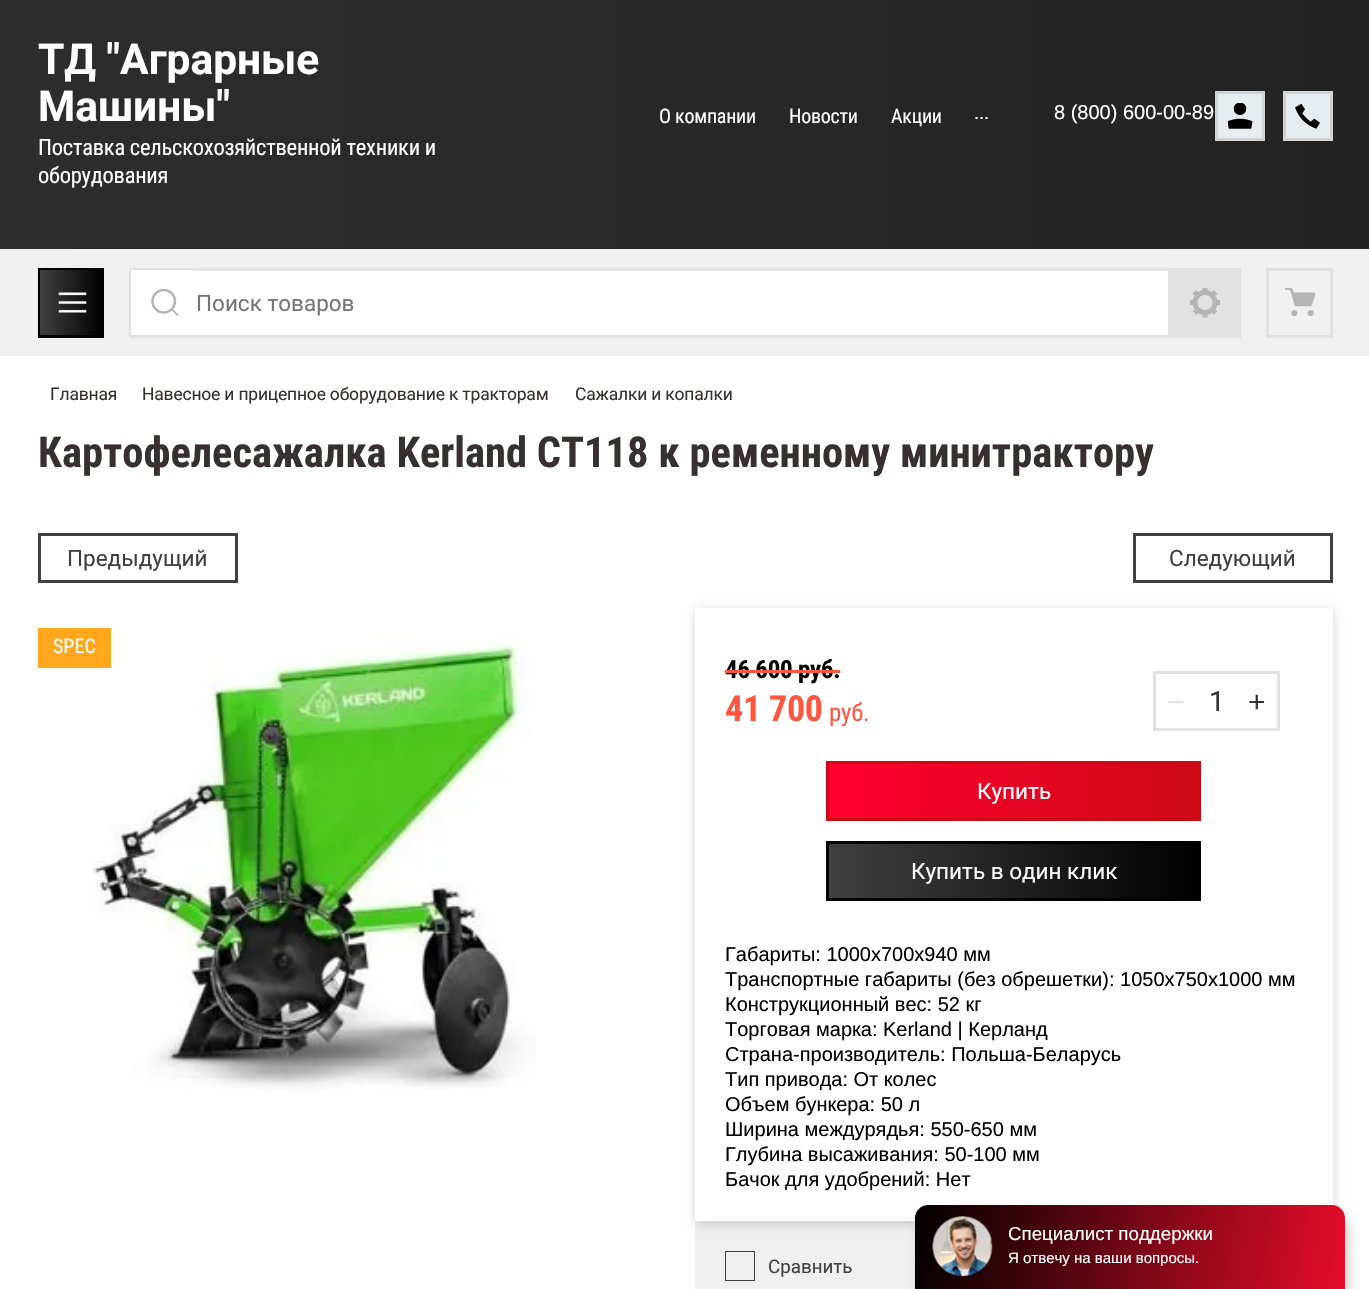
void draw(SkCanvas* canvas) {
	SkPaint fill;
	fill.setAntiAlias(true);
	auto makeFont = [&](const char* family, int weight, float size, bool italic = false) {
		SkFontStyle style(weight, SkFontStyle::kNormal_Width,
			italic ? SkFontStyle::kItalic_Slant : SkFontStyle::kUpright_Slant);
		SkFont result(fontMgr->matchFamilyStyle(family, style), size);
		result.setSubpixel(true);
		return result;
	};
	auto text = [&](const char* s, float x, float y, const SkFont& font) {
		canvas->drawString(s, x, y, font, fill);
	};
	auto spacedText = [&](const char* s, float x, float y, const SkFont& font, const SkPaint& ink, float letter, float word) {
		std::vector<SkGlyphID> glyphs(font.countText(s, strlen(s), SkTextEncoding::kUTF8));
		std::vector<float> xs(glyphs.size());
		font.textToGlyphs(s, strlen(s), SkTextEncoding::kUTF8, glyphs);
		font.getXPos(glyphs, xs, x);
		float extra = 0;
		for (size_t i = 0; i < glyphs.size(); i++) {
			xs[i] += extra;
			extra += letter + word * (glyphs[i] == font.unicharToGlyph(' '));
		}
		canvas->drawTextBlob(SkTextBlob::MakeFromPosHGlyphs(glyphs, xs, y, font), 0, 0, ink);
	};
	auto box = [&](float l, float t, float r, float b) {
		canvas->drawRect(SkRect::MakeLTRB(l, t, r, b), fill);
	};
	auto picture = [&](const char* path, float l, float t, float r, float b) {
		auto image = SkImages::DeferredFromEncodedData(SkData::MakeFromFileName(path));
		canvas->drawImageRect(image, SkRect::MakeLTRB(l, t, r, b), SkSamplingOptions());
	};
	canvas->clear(0xFFFFFFFF);
	fill.setColor(0xFFF0F0F0);
	box(0, 249, 1369, 356);
	{
		const SkColor colors[] = {0xFF2D2D2D, 0xFF232323};
		const float stops[] = {0, 1};
		const SkPoint ends[] = {{0, 117}, {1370, 117}};
		fill.setShader(SkGradientShader::MakeLinear(ends, colors, stops, 2, SkTileMode::kClamp));
		fill.setAlpha(255);
	}
	box(0, 0, 1369, 249);
	fill.setShader(nullptr);
	fill.setColor(0xFFE6EDF1);
	canvas->drawRect(SkRect::MakeLTRB(1216.5f, 92.5f, 1263.5f, 139.5f), fill);
	fill.setStyle(SkPaint::kStroke_Style);
	fill.setStrokeWidth(3);
	fill.setColor(0xFFD2D2D2);
	canvas->drawRect(SkRect::MakeLTRB(1216.5f, 92.5f, 1263.5f, 139.5f), fill);
	picture("image0.png", 1228, 103, 1253, 129);
	fill.setStyle(SkPaint::kFill_Style);
	fill.setColor(0xFFE6EDF1);
	box(1286, 94, 1330, 138);
	picture("image1.png", 1295, 104, 1320, 129);
	fill.setStyle(SkPaint::kStroke_Style);
	fill.setColor(0xFFD2D2D2);
	canvas->drawRect(SkRect::MakeLTRB(1284.5f, 92.5f, 1331.5f, 139.5f), fill);
	fill.setStyle(SkPaint::kFill_Style);
	{
		const SkColor colors[] = {0xFF404040, 0xFF000000};
		const float stops[] = {0, 1};
		const SkPoint ends[] = {{40, 303}, {101, 303}};
		fill.setShader(SkGradientShader::MakeLinear(ends, colors, stops, 2, SkTileMode::kClamp));
		fill.setAlpha(255);
	}
	box(100, 271, 101, 335);
	fill.setStyle(SkPaint::kStroke_Style);
	fill.setShader(nullptr);
	fill.setColor(0xFF000000);
	canvas->drawRect(SkRect::MakeLTRB(39.5f, 269.5f, 102.5f, 336.5f), fill);
	picture("image2.png", 40, 270, 100, 335);
	fill.setStyle(SkPaint::kFill_Style);
	fill.setColor(0xFFFFFFFF);
	canvas->drawRect(SkRect::MakeLTRB(130.5f, 269.5f, 1169.5f, 336.5f), fill);
	fill.setStyle(SkPaint::kStroke_Style);
	fill.setColor(0xFFE1E1E1);
	canvas->drawRect(SkRect::MakeLTRB(130.5f, 269.5f, 1169.5f, 336.5f), fill);
	fill.setStyle(SkPaint::kFill_Style);
	fill.setColor(0xFFFFFFFF);
	box(131, 270, 194, 333);
	picture("image3.png", 151, 289, 179, 316);
	fill.setColor(0xFFE1E1E1);
	box(1171, 268, 1241, 338);
	picture("image4.png", 1190, 288, 1220, 318);
	picture("image5.png", 1285, 288, 1315, 316);
	fill.setStyle(SkPaint::kStroke_Style);
	canvas->drawRect(SkRect::MakeLTRB(1267.5f, 269.5f, 1331.5f, 336.5f), fill);
	fill.setColor(0xFF404040);
	canvas->drawRect(SkRect::MakeLTRB(39.5f, 534.5f, 236.5f, 581.5f), fill);
	canvas->drawRect(SkRect::MakeLTRB(1134.5f, 534.5f, 1331.5f, 581.5f), fill);
	picture("image6.png", 90, 636, 536, 1091);
	fill.setStyle(SkPaint::kFill_Style);
	fill.setColor(0xFFFFA81E);
	box(38, 628, 111, 668);
	fill.setColor(0xFFF0F0F0);
	box(695, 1221, 915, 1289);
	fill.setColor(0x29000000);
	fill.setMaskFilter(SkMaskFilter::MakeBlur(kNormal_SkBlurStyle, 5));
	canvas->drawRect(SkRect::MakeLTRB(695, 610, 1333, 1224), fill);
	fill.setMaskFilter(nullptr);
	fill.setColor(0xFFFFFFFF);
	box(695, 608, 1333, 1221);
	fill.setStyle(SkPaint::kStroke_Style);
	fill.setColor(0xFFE1E1E1);
	canvas->drawRect(SkRect::MakeLTRB(1154.5f, 672.5f, 1278.5f, 729.5f), fill);
	fill.setStyle(SkPaint::kFill_Style);
	{
		const SkColor colors[] = {0xFFCD0915, 0xFFFF0030};
		const float stops[] = {0, 1};
		const SkPoint ends[] = {{1199, 791}, {829, 791}};
		fill.setShader(SkGradientShader::MakeLinear(ends, colors, stops, 2, SkTileMode::kClamp));
		fill.setAlpha(255);
	}
	box(829, 764, 1198, 818);
	fill.setStyle(SkPaint::kStroke_Style);
	fill.setShader(nullptr);
	fill.setColor(0xFFCD0915);
	canvas->drawRect(SkRect::MakeLTRB(827.5f, 762.5f, 1199.5f, 819.5f), fill);
	fill.setStyle(SkPaint::kFill_Style);
	{
		const SkColor colors[] = {0xFF404040, 0xFF000000};
		const float stops[] = {0, 1};
		const SkPoint ends[] = {{829, 871}, {1199, 871}};
		fill.setShader(SkGradientShader::MakeLinear(ends, colors, stops, 2, SkTileMode::kClamp));
		fill.setAlpha(255);
	}
	box(829, 844, 1198, 898);
	fill.setStyle(SkPaint::kStroke_Style);
	fill.setShader(nullptr);
	fill.setColor(0xFF000000);
	canvas->drawRect(SkRect::MakeLTRB(827.5f, 842.5f, 1199.5f, 899.5f), fill);
	fill.setStrokeWidth(1);
	fill.setColor(0xFF404040);
	canvas->drawRect(SkRect::MakeLTRB(725.5f, 1251.5f, 754.5f, 1280.5f), fill);
	fill.setStyle(SkPaint::kFill_Style);
	fill.setColor(0x33000000);
	fill.setMaskFilter(SkMaskFilter::MakeBlur(kNormal_SkBlurStyle, 6));
	canvas->drawRoundRect(SkRect::MakeLTRB(919, 1218, 1349, 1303), 13, 13, fill);
	fill.setMaskFilter(nullptr);
	{
		const SkColor colors[] = {0xFFE60D29, 0xFF000000};
		const float stops[] = {0, 1};
		const SkPoint ends[] = {{1346, 1282}, {914, 1213}};
		fill.setShader(SkGradientShader::MakeLinear(ends, colors, stops, 2, SkTileMode::kClamp));
		fill.setAlpha(255);
	}
	canvas->drawPath(SkPathBuilder().moveTo(928, 1205).lineTo(1332, 1205).cubicTo(1339, 1205, 1345, 1211, 1345, 1218).lineTo(1345, 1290).lineTo(915, 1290).lineTo(915, 1218).cubicTo(915, 1211, 921, 1205, 928, 1205).close().detach(), fill);
	picture("image7.png", 932, 1216, 993, 1277);
	auto font1 = makeFont("Roboto", 700, 42.5f);
	fill.setShader(nullptr);
	fill.setColor(0xFFFFFFFF);
	text("ТД \"Аграрные", 38, 74, font1);
	text("Машины\"", 38, 121, font1);
	auto font2 = makeFont("Roboto Condensed", 400, 22.5f);
	spacedText("Поставка сельскохозяйственной техники и", 38, 155, font2, fill, -0.25f, 0);
	spacedText("оборудования", 38, 183, font2, fill, -0.25f, 0);
	auto font3 = makeFont("Roboto Condensed", 400, 20);
	spacedText("О компании", 659, 123, font3, fill, -0.25f, 0);
	spacedText("Новости", 789, 123, font3, fill, -0.25f, 0);
	spacedText("Акции", 891, 123, font3, fill, -0.25f, 0);
	spacedText("...", 974, 119, font3, fill, -0.25f, 0);
	auto font4 = makeFont("Liberation Sans", 400, 20);
	text("8 (800) 600-00-89", 1054, 119, font4);
	auto font5 = makeFont("Roboto", 400, 22.5f);
	fill.setColor(0xFF757575);
	text("Поиск товаров", 196, 311, font5);
	auto font6 = makeFont("Roboto", 400, 17.5f);
	fill.setColor(0xFF383030);
	spacedText("Главная", 50, 400, font6, fill, -0.2f, 0);
	spacedText("Навесное и прицепное оборудование к тракторам", 142, 400, font6, fill, -0.2f, 0);
	spacedText("Сажалки и копалки", 575, 400, font6, fill, -0.2f, 0);
	auto font7 = makeFont("Roboto Condensed", 700, 42.5f);
	text("Картофелесажалка Kеrland СТ118 к ременному минитрактору", 38, 467, font7);
	fill.setColor(0xFF404040);
	text("Предыдущий", 67, 566, font5);
	text("Следующий", 1169, 566, font5);
	fill.setColor(0xFFFFFFFF);
	text("SPEC", 53, 653, font3);
	auto font8 = makeFont("Roboto Condensed", 700, 25);
	fill.setColor(0xFF000000);
	spacedText("46 600 руб.", 725, 678, font8, fill, -0.25f, 0);
	fill.setColor(0xFFFF5640);
	box(725, 670, 840, 673);
	auto font9 = makeFont("Roboto Condensed", 700, 36);
	spacedText("41 700", 725, 721, font9, fill, -0.25f, 0);
	auto font10 = makeFont("Roboto Condensed", 400, 25);
	spacedText("руб.", 829, 721, font10, fill, -0.25f, 0);
	auto font11 = makeFont("Liberation Sans", 400, 30);
	fill.setColor(0xFFE1E1E1);
	text("−", 1167, 712, font11);
	auto font12 = makeFont("Roboto", 400, 28);
	fill.setColor(0xFF383030);
	text("1", 1209, 711, font12);
	text("+", 1248, 712, font11);
	fill.setColor(0xFFFFFFFF);
	text("Купить", 977, 799, font5);
	text("Купить в один клик", 911, 879, font5);
	fill.setColor(0xFF000000);
	text("Габариты: 1000х700х940 мм", 725, 961, font4);
	text("Транспортные габариты (без обрешетки): 1050х750х1000 мм", 725, 986, font4);
	text("Конструкционный вес: 52 кг", 725, 1011, font4);
	text("Торговая марка: Kerland | Керланд", 725, 1036, font4);
	text("Страна-производитель: Польша-Беларусь", 725, 1061, font4);
	text("Тип привода: От колес", 725, 1086, font4);
	text("Объем бункера: 50 л", 725, 1111, font4);
	text("Ширина междурядья: 550-650 мм", 725, 1136, font4);
	text("Глубина высаживания: 50-100 мм", 725, 1161, font4);
	text("Бачок для удобрений: Нет", 725, 1186, font4);
	auto font13 = makeFont("Roboto", 400, 18.75f);
	fill.setColor(0xFF404040);
	text("Сравнить", 768, 1273, font13);
	auto font14 = makeFont("Liberation Sans", 400, 18.75f);
	fill.setColor(0xFFFFFFFF);
	text("Специалист поддержки", 1008, 1240, font14);
	auto font15 = makeFont("Liberation Sans", 400, 15);
	text("Я отвечу на ваши вопросы.", 1008, 1263, font15);
}
